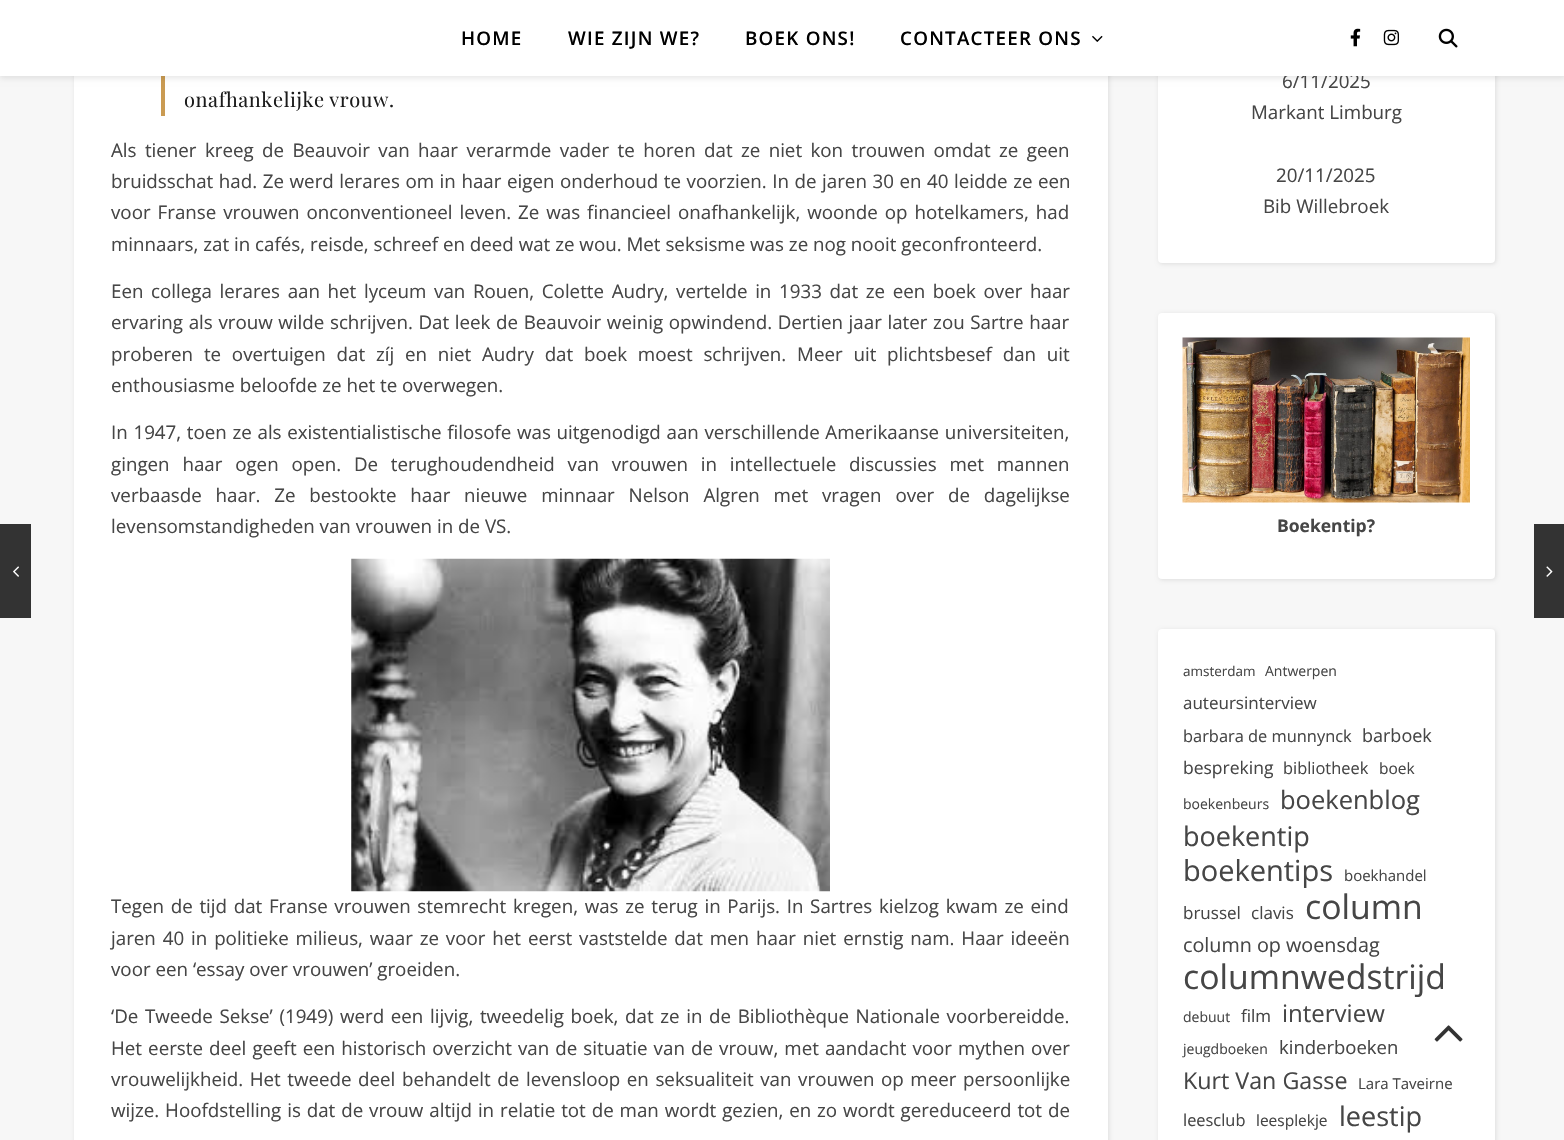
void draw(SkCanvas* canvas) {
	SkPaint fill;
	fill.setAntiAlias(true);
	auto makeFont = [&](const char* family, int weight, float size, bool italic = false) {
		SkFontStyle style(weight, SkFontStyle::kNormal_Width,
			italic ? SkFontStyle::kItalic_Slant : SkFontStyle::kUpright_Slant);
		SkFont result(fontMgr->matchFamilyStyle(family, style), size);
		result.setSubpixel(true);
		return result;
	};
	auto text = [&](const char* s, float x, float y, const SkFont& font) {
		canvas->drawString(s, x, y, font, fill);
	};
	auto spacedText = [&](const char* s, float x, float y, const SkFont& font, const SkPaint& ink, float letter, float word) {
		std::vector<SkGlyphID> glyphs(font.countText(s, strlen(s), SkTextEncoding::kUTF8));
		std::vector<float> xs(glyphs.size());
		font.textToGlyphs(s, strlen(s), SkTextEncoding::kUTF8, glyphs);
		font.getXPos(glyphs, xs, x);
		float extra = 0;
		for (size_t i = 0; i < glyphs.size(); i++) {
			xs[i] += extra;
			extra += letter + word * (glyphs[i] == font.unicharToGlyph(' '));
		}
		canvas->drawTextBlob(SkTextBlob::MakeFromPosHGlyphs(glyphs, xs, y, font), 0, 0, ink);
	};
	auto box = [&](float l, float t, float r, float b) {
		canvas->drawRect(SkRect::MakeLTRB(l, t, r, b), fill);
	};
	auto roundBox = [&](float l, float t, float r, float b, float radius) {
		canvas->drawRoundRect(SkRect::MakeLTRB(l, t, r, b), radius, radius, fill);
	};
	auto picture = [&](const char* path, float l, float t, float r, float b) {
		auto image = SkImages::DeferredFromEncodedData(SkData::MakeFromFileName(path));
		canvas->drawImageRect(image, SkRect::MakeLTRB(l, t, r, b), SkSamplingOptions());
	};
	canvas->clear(0xFFF7F7F7);
	fill.setColor(0x1A000000);
	fill.setMaskFilter(SkMaskFilter::MakeBlur(kNormal_SkBlurStyle, 2));
	canvas->drawRoundRect(SkRect::MakeLTRB(75, -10, 1109, 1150), 4, 4, fill);
	fill.setMaskFilter(nullptr);
	fill.setColor(0xFFFFFFFF);
	box(74, 76, 1108, 1140);
	fill.setColor(0xFFCA9B52);
	box(161, 76, 165, 116);
	fill.setColor(0x1A000000);
	fill.setMaskFilter(SkMaskFilter::MakeBlur(kNormal_SkBlurStyle, 2));
	canvas->drawRoundRect(SkRect::MakeLTRB(1159, -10, 1496, 264), 4, 4, fill);
	fill.setMaskFilter(nullptr);
	fill.setColor(0xFFFFFFFF);
	roundBox(1158, -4, 1495, 263, 4);
	fill.setColor(0x1A000000);
	fill.setMaskFilter(SkMaskFilter::MakeBlur(kNormal_SkBlurStyle, 3));
	canvas->drawRect(SkRect::MakeLTRB(0, 1, 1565, 78), fill);
	fill.setMaskFilter(nullptr);
	fill.setColor(0xFF333333);
	box(0, 524, 31, 618);
	picture("image4.png", 13, 566, 19, 577);
	picture("image5.png", 351, 558, 830, 892);
	box(1534, 524, 1564, 618);
	picture("image6.png", 1546, 566, 1553, 577);
	fill.setColor(0x1A000000);
	fill.setMaskFilter(SkMaskFilter::MakeBlur(kNormal_SkBlurStyle, 2));
	canvas->drawRoundRect(SkRect::MakeLTRB(1159, 314, 1496, 580), 4, 4, fill);
	fill.setMaskFilter(nullptr);
	fill.setColor(0xFFFFFFFF);
	roundBox(1158, 313, 1495, 579, 4);
	picture("image7.png", 1182, 337, 1470, 503);
	fill.setColor(0x1A000000);
	fill.setMaskFilter(SkMaskFilter::MakeBlur(kNormal_SkBlurStyle, 2));
	canvas->drawRoundRect(SkRect::MakeLTRB(1159, 630, 1496, 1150), 4, 4, fill);
	fill.setMaskFilter(nullptr);
	fill.setColor(0xFFFFFFFF);
	roundBox(1158, 629, 1495, 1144, 4);
	picture("image8.png", 1434, 1025, 1463, 1042);
	auto font1 = makeFont("Playfair Display", 400, 20);
	fill.setColor(0xFF1C1C1C);
	spacedText("onafhankelijke vrouw.", 184, 107, font1, fill, 0.6f, -1);
	auto font2 = makeFont("Open Sans", 400, 18.75f);
	fill.setColor(0xFF464646);
	spacedText("Als tiener kreeg de Beauvoir van haar verarmde vader te horen dat ze niet kon trouwen omdat ze geen", 111, 157, font2, fill, 0, 3.5f);
	spacedText("bruidsschat had. Ze werd lerares om in haar eigen onderhoud te voorzien. In de jaren 30 en 40 leidde ze een", 111, 188, font2, fill, 0, 0.7f);
	spacedText("voor Franse vrouwen onconventioneel leven. Ze was financieel onafhankelijk, woonde op hotelkamers, had", 111, 219, font2, fill, 0, 2.1f);
	text("minnaars, zat in cafés, reisde, schreef en deed wat ze wou. Met seksisme was ze nog nooit geconfronteerd.", 111, 251, font2);
	spacedText("Een collega lerares aan het lyceum van Rouen, Colette Audry, vertelde in 1933 dat ze een boek over haar", 111, 298, font2, fill, 0, 2.75f);
	spacedText("ervaring als vrouw wilde schrijven. Dat leek de Beauvoir weinig opwindend. Dertien jaar later zou Sartre haar", 111, 329, font2, fill, 0, 0.75f);
	spacedText("proberen te overtuigen dat zíj en niet Audry dat boek moest schrijven. Meer uit plichtsbesef dan uit", 111, 361, font2, fill, 0, 5.9f);
	text("enthousiasme beloofde ze het te overwegen.", 111, 392, font2);
	spacedText("In 1947, toen ze als existentialistische filosofe was uitgenodigd aan verschillende Amerikaanse universiteiten,", 111, 439, font2, fill, 0, 0.8f);
	spacedText("gingen haar ogen open. De terughoudendheid van vrouwen in intellectuele discussies met mannen", 111, 471, font2, fill, 0, 7.9f);
	spacedText("verbaasde haar. Ze bestookte haar nieuwe minnaar Nelson Algren met vragen over de dagelijkse", 111, 502, font2, fill, 0, 8.9f);
	text("levensomstandigheden van vrouwen in de VS.", 111, 533, font2);
	spacedText("Tegen de tijd dat Franse vrouwen stemrecht kregen, was ze terug in Parijs. In Sartres kielzog kwam ze eind", 111, 913, font2, fill, 0, 1.8f);
	spacedText("jaren 40 in politieke milieus, waar ze voor het eerst vaststelde dat men haar niet ernstig nam. Haar ideeën", 111, 945, font2, fill, 0, 2);
	text("voor een ‘essay over vrouwen’ groeiden.", 111, 976, font2);
	spacedText("‘De Tweede Sekse’ (1949) werd een lijvig, tweedelig boek, dat ze in de Bibliothèque Nationale voorbereidde.", 111, 1023, font2, fill, 0, 1.75f);
	spacedText("Het eerste deel geeft een historisch overzicht van de situatie van de vrouw, met aandacht voor mythen over", 111, 1055, font2, fill, 0, 1.2f);
	spacedText("vrouwelijkheid. Het tweede deel behandelt de levensloop en seksualiteit van vrouwen op meer persoonlijke", 111, 1086, font2, fill, 0, 1.7f);
	spacedText("wijze. Hoofdstelling is dat de vrouw altijd in relatie tot de man wordt gezien, en zo wordt gereduceerd tot de", 111, 1117, font2, fill, 0, 1);
	text("6/11/2025", 1282, 88, font2);
	fill.setColor(0xFFFFFFFF);
	box(0, 0, 1564, 76);
	picture("image3.png", 1438, 28, 1458, 48);
	picture("image2.png", 1383, 29, 1399, 46);
	picture("image1.png", 1350, 28, 1361, 47);
	picture("image0.png", 1092, 35, 1103, 42);
	auto font3 = makeFont("Open Sans", 600, 18.75f);
	fill.setColor(0xFF000000);
	spacedText("CONTACTEER ONS", 900, 45, font3, fill, 1.25f, 0);
	spacedText("BOEK ONS!", 745, 45, font3, fill, 1.25f, 0);
	spacedText("WIE ZIJN WE?", 568, 45, font3, fill, 1.25f, 0);
	spacedText("HOME", 461, 45, font3, fill, 1.25f, 0);
	fill.setColor(0xFF464646);
	text("Markant Limburg", 1251, 119, font2);
	text("20/11/2025", 1276, 182, font2);
	text("Bib Willebroek", 1263, 213, font2);
	auto font4 = makeFont("Open Sans", 700, 17.5f);
	text("Boekentip?", 1277, 532, font4);
	auto font5 = makeFont("Open Sans", 400, 13.5f);
	text("amsterdam", 1183, 676, font5);
	auto font6 = makeFont("Open Sans", 400, 14);
	text("Antwerpen", 1265, 676, font6);
	auto font7 = makeFont("Open Sans", 400, 17);
	text("auteursinterview", 1183, 709, font7);
	auto font8 = makeFont("Open Sans", 400, 16.4f);
	text("barbara de munnynck", 1183, 742, font8);
	auto font9 = makeFont("Open Sans", 400, 18);
	text("barboek", 1362, 742, font9);
	auto font10 = makeFont("Open Sans", 400, 17.5f);
	text("bespreking", 1183, 774, font10);
	text("bibliotheek", 1283, 774, font8);
	auto font11 = makeFont("Open Sans", 400, 15.5f);
	text("boek", 1379, 774, font11);
	text("boekenbeurs", 1183, 809, font6);
	auto font12 = makeFont("Open Sans", 400, 25.5f);
	text("boekenblog", 1280, 809, font12);
	auto font13 = makeFont("Open Sans", 400, 27);
	text("boekentip", 1183, 846, font13);
	auto font14 = makeFont("Open Sans", 400, 29);
	text("boekentips", 1183, 881, font14);
	auto font15 = makeFont("Open Sans", 400, 15);
	text("boekhandel", 1344, 881, font15);
	text("brussel", 1183, 919, font7);
	text("clavis", 1251, 919, font7);
	auto font16 = makeFont("Open Sans", 400, 33.75f);
	text("column", 1305, 919, font16);
	auto font17 = makeFont("Open Sans", 400, 19.75f);
	text("column op woensdag", 1183, 952, font17);
	text("columnwedstrijd", 1183, 989, font16);
	text("debuut", 1183, 1022, font6);
	text("film", 1241, 1022, font7);
	auto font18 = makeFont("Open Sans", 400, 24);
	text("interview", 1282, 1022, font18);
	text("jeugdboeken", 1183, 1054, font6);
	auto font19 = makeFont("Open Sans", 400, 18.5f);
	text("kinderboeken", 1279, 1054, font19);
	auto font20 = makeFont("Open Sans", 400, 23.25f);
	text("Kurt Van Gasse", 1183, 1089, font20);
	text("Lara Taveirne", 1358, 1089, font15);
	text("leesclub", 1183, 1126, font8);
	text("leesplekje", 1256, 1126, font11);
	text("leestip", 1339, 1126, font13);
}
